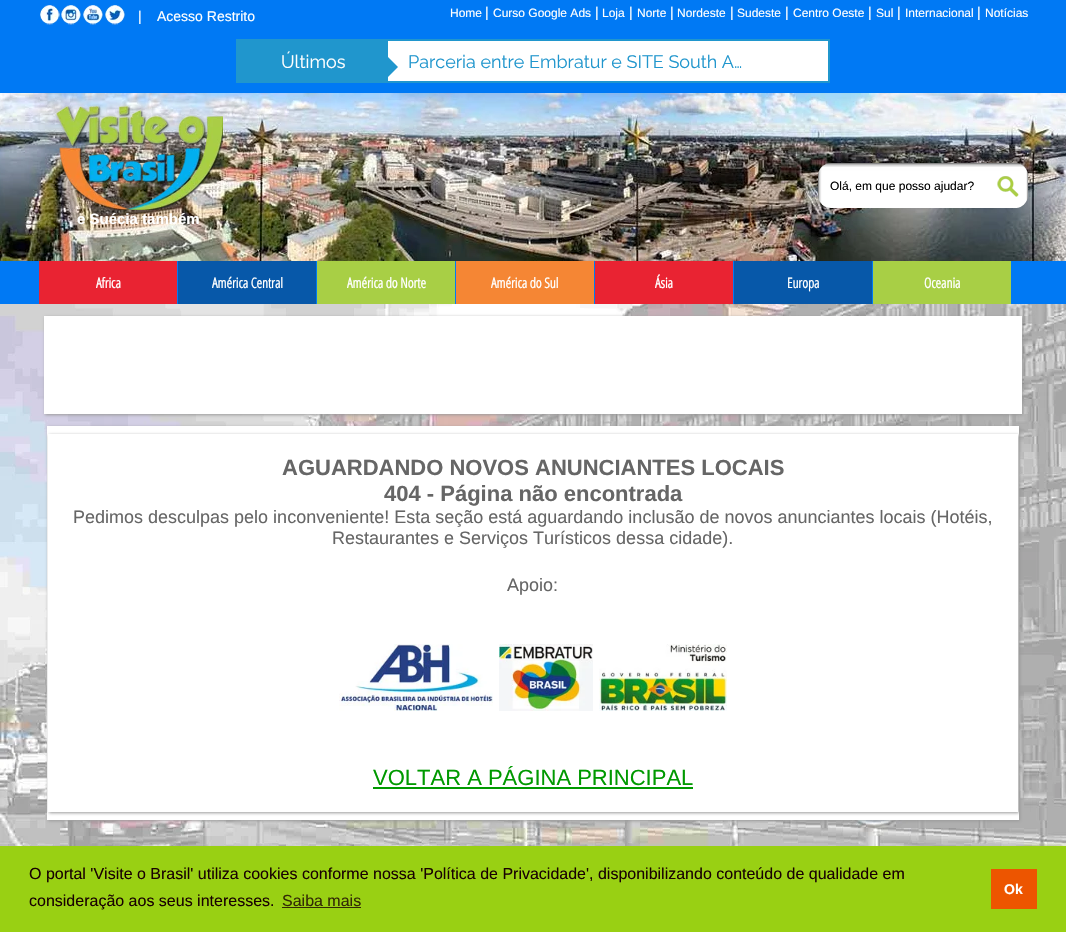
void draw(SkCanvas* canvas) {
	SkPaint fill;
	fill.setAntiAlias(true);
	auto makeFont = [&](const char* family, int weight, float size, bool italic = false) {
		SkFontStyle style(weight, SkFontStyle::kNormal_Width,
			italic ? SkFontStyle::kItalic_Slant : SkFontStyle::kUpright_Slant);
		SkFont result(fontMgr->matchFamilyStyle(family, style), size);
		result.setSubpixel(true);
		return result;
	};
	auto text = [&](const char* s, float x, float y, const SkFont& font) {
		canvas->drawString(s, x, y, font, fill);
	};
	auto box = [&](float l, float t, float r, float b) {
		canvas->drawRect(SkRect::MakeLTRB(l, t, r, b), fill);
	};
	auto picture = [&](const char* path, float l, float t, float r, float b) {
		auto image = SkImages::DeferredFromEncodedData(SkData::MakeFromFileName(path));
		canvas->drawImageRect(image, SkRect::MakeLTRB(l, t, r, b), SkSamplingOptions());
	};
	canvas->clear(0xFFFFFFFF);
	picture("image0.png", 0, 304, 1066, 846);
	fill.setColor(0xFF0079F4);
	box(0, 0, 1066, 93);
	picture("image1.png", 40, 5, 60, 25);
	picture("image2.png", 61, 5, 81, 25);
	picture("image3.png", 83, 5, 103, 25);
	picture("image4.png", 105, 5, 125, 25);
	fill.setColor(0xFFFFFFFF);
	box(388, 41, 828, 81);
	fill.setStyle(SkPaint::kStroke_Style);
	fill.setStrokeWidth(2);
	fill.setColor(0xFF2096CD);
	canvas->drawRect(SkRect::MakeLTRB(237, 40, 829, 82), fill);
	fill.setStyle(SkPaint::kFill_Style);
	box(238, 41, 388, 81);
	canvas->drawPath(SkPathBuilder().moveTo(388, 77).lineTo(388, 57).lineTo(398, 67).close().detach(), fill);
	picture("image5.png", 0, 93, 1066, 261);
	picture("image6.png", 818, 163, 1028, 208);
	picture("image7.png", 997, 176, 1019, 197);
	picture("image8.png", 55, 104, 223, 210);
	fill.setColor(0xFF0079F4);
	box(0, 261, 1066, 304);
	fill.setColor(0xFFE92332);
	box(39, 261, 177, 304);
	fill.setColor(0xFF0758A9);
	box(178, 261, 316, 304);
	fill.setColor(0xFFA8CF45);
	box(317, 261, 455, 304);
	fill.setColor(0xFFF58634);
	box(456, 261, 594, 304);
	fill.setColor(0xFFE92332);
	box(595, 261, 733, 304);
	fill.setColor(0xFF0758A9);
	box(734, 261, 872, 304);
	fill.setColor(0xFFA8CF45);
	box(873, 261, 1011, 304);
	fill.setColor(0xFF999999);
	fill.setMaskFilter(SkMaskFilter::MakeBlur(kNormal_SkBlurStyle, 1.5f));
	canvas->drawRect(SkRect::MakeLTRB(45, 317, 1023, 415), fill);
	fill.setMaskFilter(nullptr);
	fill.setColor(0xFFFFFFFF);
	box(44, 316, 1022, 414);
	fill.setColor(0xFF999999);
	fill.setMaskFilter(SkMaskFilter::MakeBlur(kNormal_SkBlurStyle, 1.5f));
	canvas->drawRect(SkRect::MakeLTRB(48, 427, 1020, 821), fill);
	fill.setMaskFilter(nullptr);
	fill.setColor(0xFFFFFFFF);
	box(47, 426, 1019, 820);
	canvas->save();
	canvas->clipRect(SkRect::MakeLTRB(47, 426, 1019, 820));
	canvas->clipPath(SkPathBuilder(SkPathFillType::kEvenOdd).moveTo(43, 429).lineTo(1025, 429).lineTo(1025, 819).lineTo(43, 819).close().moveTo(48, 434).lineTo(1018, 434).lineTo(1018, 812).lineTo(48, 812).close().detach(), true);
	fill.setColor(0xFF999999);
	fill.setMaskFilter(SkMaskFilter::MakeBlur(kNormal_SkBlurStyle, 1.5f));
	canvas->drawRect(SkRect::MakeLTRB(49, 435, 1019, 813), fill);
	fill.setMaskFilter(nullptr);
	canvas->restore();
	picture("image9.png", 339, 644, 493, 711);
	picture("image10.png", 499, 644, 593, 711);
	picture("image11.png", 599, 644, 727, 711);
	fill.setColor(0xFF009900);
	box(373, 787, 693, 789);
	fill.setColor(0xFF99D013);
	box(0, 846, 1066, 932);
	fill.setColor(0xFF332A05);
	box(282, 907, 361, 908);
	fill.setColor(0xFFED5500);
	box(991, 869, 1037, 909);
	auto font1 = makeFont("Liberation Sans", 400, 14);
	fill.setColor(0xFFFFFFFF);
	text("|", 138, 21, font1);
	text("Acesso Restrito", 157, 21, font1);
	auto font2 = makeFont("Liberation Sans", 400, 12);
	text("Home", 450, 17, font2);
	text("|", 485, 17, font1);
	text("Curso Google Ads", 493, 17, font2);
	text("|", 595, 17, font1);
	text("Loja", 602, 17, font2);
	text("|", 629, 17, font1);
	text("Norte", 637, 17, font2);
	text("|", 670, 17, font1);
	text("Nordeste", 677, 17, font2);
	text("|", 730, 17, font1);
	text("Sudeste", 737, 17, font2);
	text("|", 785, 17, font1);
	text("Centro Oeste", 793, 17, font2);
	text("|", 868, 17, font1);
	text("Sul", 876, 17, font2);
	text("|", 897, 17, font1);
	text("Internacional", 905, 17, font2);
	text("|", 977, 17, font1);
	text("Notícias", 985, 17, font2);
	auto font3 = makeFont("Raleway", 400, 18);
	text("Últimos", 281, 68, font3);
	fill.setColor(0xFF2096CD);
	text("Parceria entre Embratur e SITE South A…", 408, 68, font3);
	fill.setColor(0xFF000000);
	text("Olá, em que posso ajudar?", 830, 190, font2);
	auto font4 = makeFont("Liberation Sans", 700, 15);
	fill.setColor(0xFFFFFFFF);
	text("e Suécia também", 77, 224, font4);
	auto font5 = makeFont("Open Sans Condensed", 700, 14);
	text("Africa", 96, 288, font5);
	text("América Central", 212, 288, font5);
	text("América do Norte", 347, 288, font5);
	text("América do Sul", 491, 288, font5);
	text("Ásia", 655, 288, font5);
	text("Europa", 787, 288, font5);
	text("Oceania", 924, 288, font5);
	auto font6 = makeFont("Liberation Sans", 700, 22);
	fill.setColor(0xFF666666);
	text("AGUARDANDO NOVOS ANUNCIANTES LOCAIS", 282, 475, font6);
	text("404 - Página não encontrada", 384, 501, font6);
	auto font7 = makeFont("Liberation Sans", 400, 18);
	text("Pedimos desculpas pelo inconveniente! Esta seção está aguardando inclusão de novos anunciantes locais (Hotéis,", 73, 523, font7);
	text("Restaurantes e Serviços Turísticos dessa cidade).", 332, 544, font7);
	text("Apoio:", 507, 591, font7);
	auto font8 = makeFont("Liberation Sans", 400, 22);
	fill.setColor(0xFF009900);
	text("VOLTAR A PÁGINA PRINCIPAL", 373, 785, font8);
	auto font9 = makeFont("Liberation Sans", 400, 16);
	fill.setColor(0xFF190101);
	text("O portal 'Visite o Brasil' utiliza cookies conforme nossa 'Política de Privacidade', disponibilizando conteúdo de qualidade em", 29, 879, font9);
	text("consideração aos seus interesses.", 29, 906, font9);
	fill.setColor(0xFF332A05);
	text("Saiba mais", 282, 906, font9);
	auto font10 = makeFont("Liberation Sans", 700, 14);
	fill.setColor(0xFFFFFFFF);
	text("Ok", 1004, 894, font10);
}
